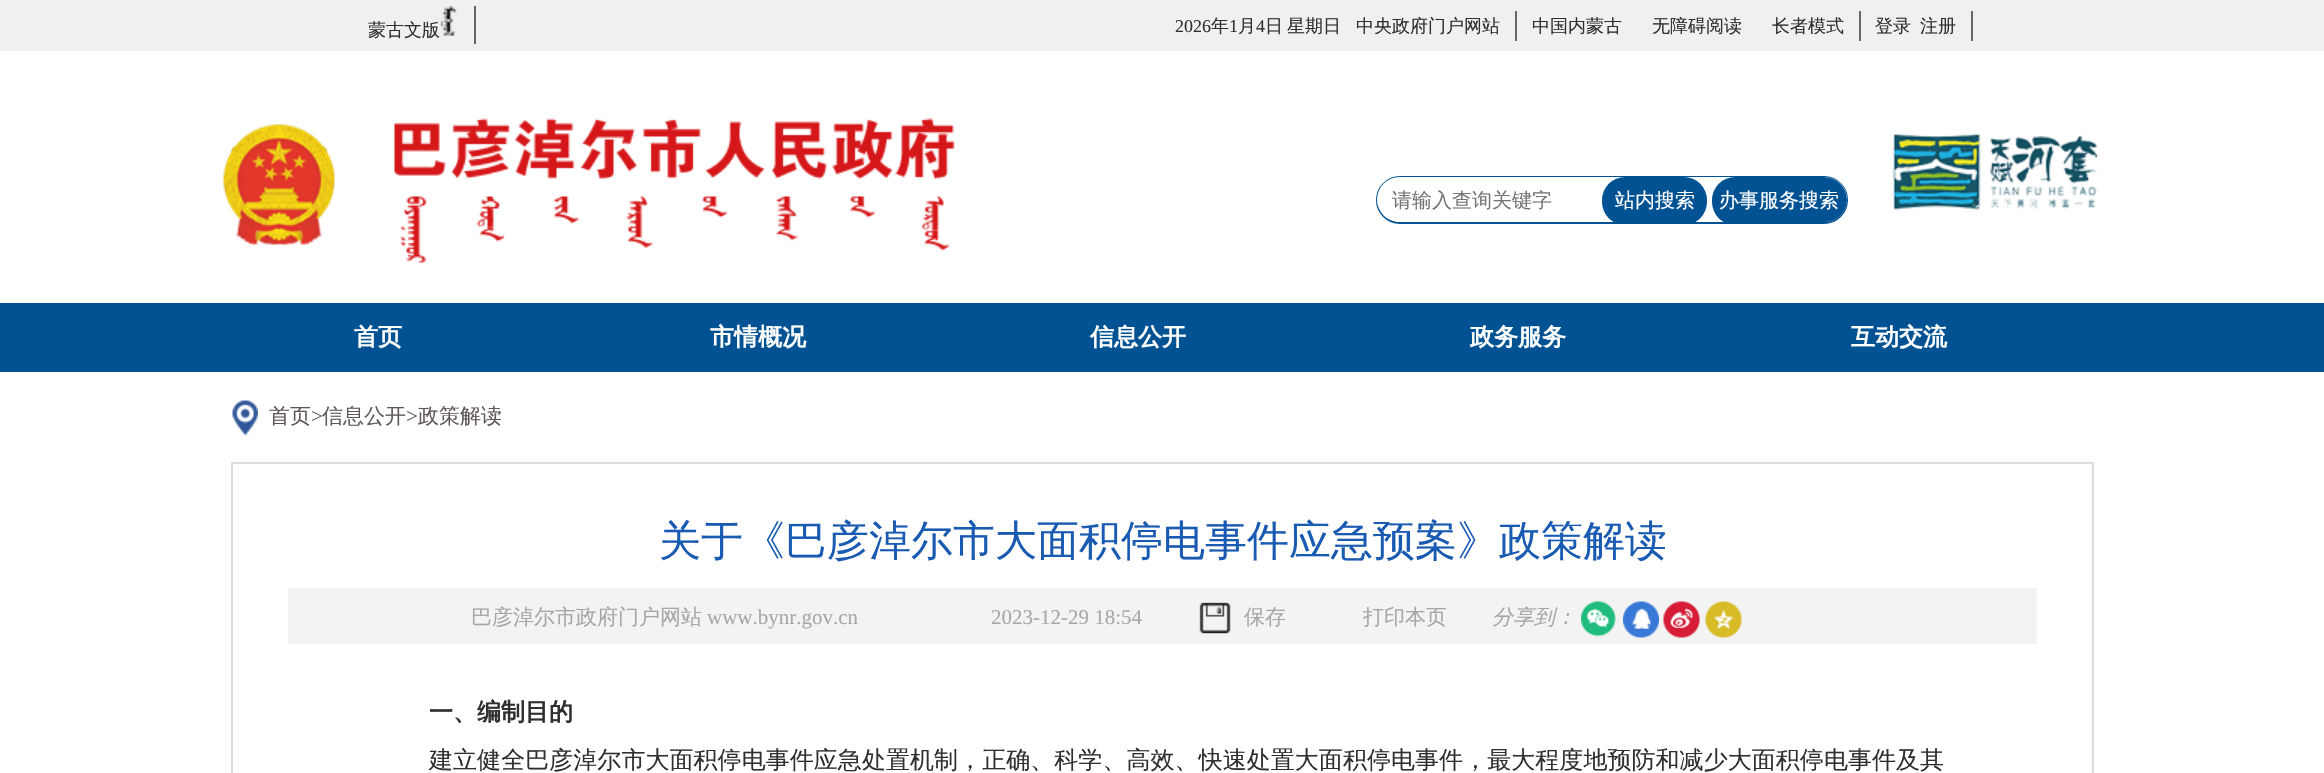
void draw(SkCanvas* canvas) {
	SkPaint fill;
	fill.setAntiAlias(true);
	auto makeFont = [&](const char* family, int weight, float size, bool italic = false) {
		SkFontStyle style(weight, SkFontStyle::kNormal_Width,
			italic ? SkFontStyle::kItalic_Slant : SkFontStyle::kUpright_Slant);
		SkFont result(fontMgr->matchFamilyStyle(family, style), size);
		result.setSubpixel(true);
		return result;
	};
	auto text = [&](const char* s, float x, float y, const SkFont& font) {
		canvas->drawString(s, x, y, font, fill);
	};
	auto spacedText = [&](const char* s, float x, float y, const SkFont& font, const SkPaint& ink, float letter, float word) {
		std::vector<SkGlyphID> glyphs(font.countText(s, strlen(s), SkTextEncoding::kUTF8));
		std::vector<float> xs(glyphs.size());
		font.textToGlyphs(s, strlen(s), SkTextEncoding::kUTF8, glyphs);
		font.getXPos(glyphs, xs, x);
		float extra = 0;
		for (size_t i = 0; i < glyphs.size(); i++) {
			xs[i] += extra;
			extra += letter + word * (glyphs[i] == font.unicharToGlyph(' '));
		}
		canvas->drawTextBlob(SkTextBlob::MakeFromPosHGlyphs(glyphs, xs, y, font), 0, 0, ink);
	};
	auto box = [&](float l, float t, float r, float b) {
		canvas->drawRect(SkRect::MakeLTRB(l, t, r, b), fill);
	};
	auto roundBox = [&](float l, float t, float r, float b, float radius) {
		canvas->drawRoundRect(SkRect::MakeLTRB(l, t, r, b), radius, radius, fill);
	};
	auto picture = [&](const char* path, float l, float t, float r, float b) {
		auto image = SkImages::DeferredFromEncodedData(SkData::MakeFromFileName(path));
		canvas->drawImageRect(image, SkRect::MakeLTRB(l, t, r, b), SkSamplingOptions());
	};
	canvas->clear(0xFFFFFFFF);
	fill.setColor(0xFFF0F0F0);
	box(0, 0, 2324, 51);
	fill.setColor(0xFF666666);
	box(474, 6, 476, 44);
	picture("image0.png", 440, 6, 457, 36);
	box(1515, 11, 1517, 41);
	box(1859, 11, 1861, 41);
	box(1971, 11, 1973, 41);
	picture("image1.png", 223, 118, 955, 263);
	fill.setStyle(SkPaint::kStroke_Style);
	fill.setStrokeWidth(2);
	fill.setColor(0xFF015293);
	canvas->drawRoundRect(SkRect::MakeLTRB(1377, 177, 1847, 223), 23, 23, fill);
	fill.setStyle(SkPaint::kFill_Style);
	fill.setColor(0xFFFFFFFF);
	roundBox(1377, 177, 1847, 222, 22.5f);
	canvas->save();
	canvas->clipPath(SkPathBuilder().moveTo(1399.5f, 177).lineTo(1824.5f, 177).cubicTo(1837, 177, 1847, 187, 1847, 199.5f).cubicTo(1847, 212, 1837, 222, 1824.5f, 222).lineTo(1399.5f, 222).cubicTo(1387, 222, 1377, 212, 1377, 199.5f).cubicTo(1377, 187, 1387, 177, 1399.5f, 177).close().detach(), true);
	fill.setColor(0xFF015293);
	roundBox(1602, 177, 1707, 225, 23);
	roundBox(1712, 177, 1847, 225, 23);
	canvas->restore();
	picture("image2.png", 1893, 133, 2098, 211);
	box(0, 303, 2324, 372);
	picture("image3.png", 232, 400, 258, 435);
	fill.setStyle(SkPaint::kStroke_Style);
	fill.setColor(0xFFDDDDDD);
	canvas->drawRect(SkRect::MakeLTRB(232, 463, 2093, 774), fill);
	fill.setStyle(SkPaint::kFill_Style);
	fill.setColor(0xFFF3F3F3);
	box(288, 588, 2037, 644);
	picture("image4.png", 1199, 602, 1231, 634);
	picture("image5.png", 1581, 601, 1616, 637);
	picture("image6.png", 1623, 601, 1659, 638);
	picture("image7.png", 1663, 601, 1700, 638);
	picture("image8.png", 1705, 601, 1742, 638);
	auto font1 = makeFont("WenQuanYi Zen Hei", 500, 18);
	fill.setColor(0xFF2F2F2F);
	text("蒙古文版", 368, 36, font1);
	auto font2 = makeFont("Liberation Serif", 400, 18);
	text("2026", 1175, 32, font2);
	text("年", 1211, 32, font1);
	text("1", 1229, 32, font2);
	text("月", 1238, 32, font1);
	text("4", 1256, 32, font2);
	text("日", 1265, 32, font1);
	text("星期日", 1287, 32, font1);
	text("中央政府门户网站", 1356, 32, font1);
	text("中国内蒙古", 1532, 32, font1);
	text("无障碍阅读", 1652, 32, font1);
	text("长者模式", 1772, 32, font1);
	text("登录", 1875, 32, font1);
	text("注册", 1920, 32, font1);
	auto font3 = makeFont("WenQuanYi Zen Hei", 500, 20);
	fill.setColor(0xFF757575);
	text("请输入查询关键字", 1392, 207, font3);
	fill.setColor(0xFFFFFFFF);
	text("站内搜索", 1615, 207, font3);
	text("办事服务搜索", 1719, 207, font3);
	auto font4 = makeFont("WenQuanYi Zen Hei", 700, 24);
	text("首页", 354, 345, font4);
	text("市情概况", 710, 345, font4);
	text("信息公开", 1090, 345, font4);
	text("政务服务", 1470, 345, font4);
	text("互动交流", 1851, 345, font4);
	auto font5 = makeFont("WenQuanYi Zen Hei", 500, 21);
	fill.setColor(0xFF5E5755);
	text("首页", 269, 423, font5);
	auto font6 = makeFont("Liberation Serif", 400, 21);
	text(">", 311, 423, font6);
	text("信息公开", 322, 423, font5);
	text(">", 406, 423, font6);
	text("政策解读", 418, 423, font5);
	auto font7 = makeFont("WenQuanYi Zen Hei", 500, 42);
	fill.setColor(0xFF195AB2);
	text("关于《巴彦淖尔市大面积停电事件应急预案》政策解读", 659, 555, font7);
	fill.setColor(0xFFA7A7A7);
	text("巴彦淖尔市政府门户网站", 471, 624, font5);
	text("www.bynr.gov.cn", 707, 624, font6);
	text("2023-12-29 18:54", 991, 624, font6);
	text("保存", 1244, 624, font5);
	text("打印本页", 1363, 624, font5);
	auto font8 = makeFont("WenQuanYi Zen Hei", 500, 21, true);
	text("分享到：", 1492, 624, font8);
	fill.setColor(0xFF2F2F2F);
	text("一、编制目的", 429, 720, font4);
	auto font9 = makeFont("WenQuanYi Zen Hei", 500, 24);
	spacedText("建立健全巴彦淖尔市大面积停电事件应急处置机制，正确、科学、高效、快速处置大面积停电事件，最大程度地预防和减少大面积停电事件及其", 429, 768, font9, fill, 0.05f, 0);
}
